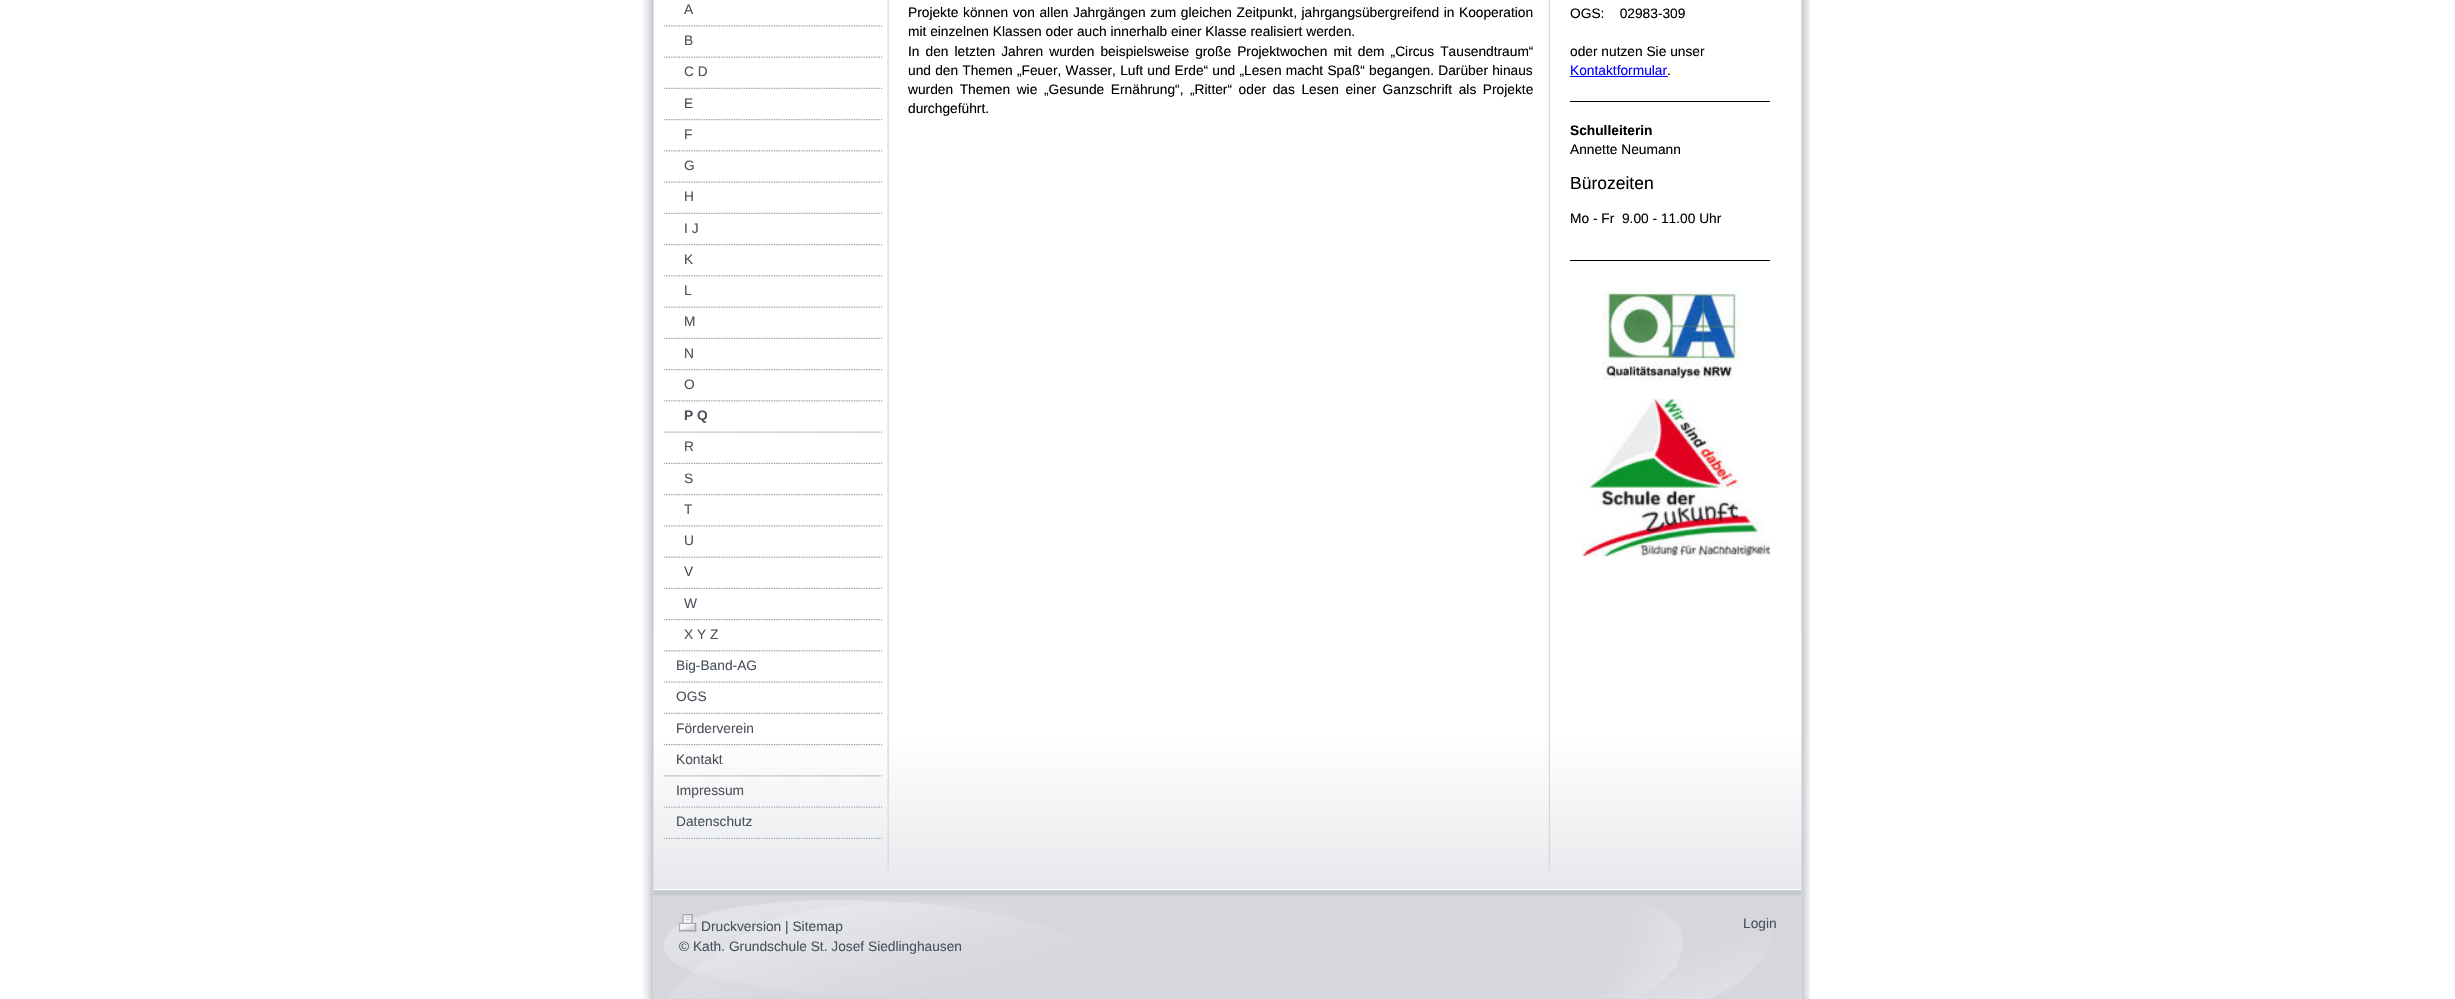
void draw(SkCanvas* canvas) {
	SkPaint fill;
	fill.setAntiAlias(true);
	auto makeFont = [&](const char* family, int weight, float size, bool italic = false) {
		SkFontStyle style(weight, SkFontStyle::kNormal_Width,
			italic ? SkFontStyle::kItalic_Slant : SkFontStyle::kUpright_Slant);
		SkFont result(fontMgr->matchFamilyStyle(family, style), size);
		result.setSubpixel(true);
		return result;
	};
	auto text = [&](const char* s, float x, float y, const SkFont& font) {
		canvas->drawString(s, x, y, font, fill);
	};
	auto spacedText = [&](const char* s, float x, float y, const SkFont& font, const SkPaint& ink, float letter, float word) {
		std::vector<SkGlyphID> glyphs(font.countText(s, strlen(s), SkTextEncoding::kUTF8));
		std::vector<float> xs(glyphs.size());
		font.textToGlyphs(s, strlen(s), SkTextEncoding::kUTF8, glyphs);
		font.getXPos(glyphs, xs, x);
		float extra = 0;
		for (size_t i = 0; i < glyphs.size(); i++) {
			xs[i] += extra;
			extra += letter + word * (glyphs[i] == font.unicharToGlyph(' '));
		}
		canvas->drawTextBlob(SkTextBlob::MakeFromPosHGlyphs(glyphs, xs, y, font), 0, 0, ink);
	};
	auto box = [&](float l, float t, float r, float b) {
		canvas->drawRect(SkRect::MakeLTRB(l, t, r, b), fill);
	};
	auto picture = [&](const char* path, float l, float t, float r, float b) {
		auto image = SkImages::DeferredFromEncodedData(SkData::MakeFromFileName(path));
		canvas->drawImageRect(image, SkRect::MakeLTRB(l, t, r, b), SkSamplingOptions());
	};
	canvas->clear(0xFFFFFFFF);
	picture("image0.png", 642, 0, 1810, 999);
	picture("image1.png", 653, 630, 1802, 889);
	picture("image2.png", 887, 0, 1550, 871);
	picture("image3.png", 663, 25, 883, 27);
	picture("image4.png", 663, 56, 883, 58);
	picture("image5.png", 663, 87, 883, 89);
	picture("image6.png", 663, 119, 883, 121);
	picture("image3.png", 663, 150, 883, 152);
	picture("image4.png", 663, 181, 883, 183);
	picture("image5.png", 663, 212, 883, 214);
	picture("image6.png", 663, 244, 883, 246);
	picture("image3.png", 663, 275, 883, 277);
	picture("image4.png", 663, 306, 883, 308);
	picture("image5.png", 663, 337, 883, 339);
	picture("image6.png", 663, 369, 883, 371);
	picture("image3.png", 663, 400, 883, 402);
	picture("image4.png", 663, 431, 883, 433);
	picture("image5.png", 663, 462, 883, 464);
	picture("image6.png", 663, 494, 883, 496);
	picture("image3.png", 663, 525, 883, 527);
	picture("image4.png", 663, 556, 883, 558);
	picture("image5.png", 663, 587, 883, 589);
	picture("image6.png", 663, 619, 883, 621);
	picture("image3.png", 663, 650, 883, 652);
	picture("image4.png", 663, 681, 883, 683);
	picture("image5.png", 663, 712, 883, 714);
	picture("image7.png", 663, 744, 883, 746);
	picture("image8.png", 663, 775, 883, 777);
	picture("image9.png", 663, 806, 883, 808);
	picture("image10.png", 663, 837, 883, 839);
	fill.setColor(0xFF0000FF);
	box(1570, 76, 1668, 77);
	fill.setColor(0xFF000000);
	box(1570, 101, 1770, 102);
	box(1570, 260, 1770, 261);
	picture("image11.png", 1602, 290, 1743, 381);
	picture("image12.png", 1582, 399, 1770, 557);
	picture("image13.png", 653, 890, 1802, 999);
	picture("image14.png", 678, 914, 697, 932);
	auto font1 = makeFont("Liberation Sans", 400, 13.75f);
	fill.setColor(0xFF4B525C);
	text("A", 684, 14, font1);
	text("B", 684, 45, font1);
	text("C D", 684, 76, font1);
	text("E", 684, 108, font1);
	text("F", 684, 139, font1);
	text("G", 684, 170, font1);
	text("H", 684, 201, font1);
	text("I J", 684, 233, font1);
	text("K", 684, 264, font1);
	text("L", 684, 295, font1);
	text("M", 684, 326, font1);
	text("N", 684, 358, font1);
	text("O", 684, 389, font1);
	auto font2 = makeFont("Liberation Sans", 700, 13.75f);
	text("P Q", 684, 420, font2);
	text("R", 684, 451, font1);
	text("S", 684, 483, font1);
	text("T", 684, 514, font1);
	text("U", 684, 545, font1);
	text("V", 684, 576, font1);
	text("W", 684, 608, font1);
	text("X Y Z", 684, 639, font1);
	text("Big-Band-AG", 676, 670, font1);
	text("OGS", 676, 701, font1);
	text("Förderverein", 676, 733, font1);
	text("Kontakt", 676, 764, font1);
	text("Impressum", 676, 795, font1);
	text("Datenschutz", 676, 826, font1);
	fill.setColor(0xFF000000);
	spacedText("Projekte können von allen Jahrgängen zum gleichen Zeitpunkt, jahrgangsübergreifend in Kooperation", 908, 17, font1, fill, 0, 0.75f);
	text("mit einzelnen Klassen oder auch innerhalb einer Klasse realisiert werden.", 908, 36, font1);
	spacedText("In den letzten Jahren wurden beispielsweise große Projektwochen mit dem „Circus Tausendtraum“", 908, 56, font1, fill, 0, 2.25f);
	spacedText("und den Themen „Feuer, Wasser, Luft und Erde“ und „Lesen macht Spaß“ begangen. Darüber hinaus", 908, 75, font1, fill, 0, 0.4f);
	spacedText("wurden Themen wie „Gesunde Ernährung“, „Ritter“ oder das Lesen einer Ganzschrift als Projekte", 908, 94, font1, fill, 0, 2.75f);
	text("durchgeführt.", 908, 113, font1);
	text("OGS:    02983-309", 1570, 18, font1);
	text("oder nutzen Sie unser", 1570, 56, font1);
	fill.setColor(0xFF0000FF);
	text("Kontaktformular", 1570, 75, font1);
	fill.setColor(0xFF000000);
	text(".", 1667, 75, font1);
	text("Schulleiterin", 1570, 135, font2);
	text("Annette Neumann", 1570, 154, font1);
	auto font3 = makeFont("Liberation Sans", 400, 17.5f);
	text("Bürozeiten", 1570, 189, font3);
	text("Mo - Fr  9.00 - 11.00 Uhr", 1570, 223, font1);
	fill.setColor(0xFF4B525C);
	text("Druckversion | Sitemap", 701, 931, font1);
	text("© Kath. Grundschule St. Josef Siedlinghausen", 679, 951, font1);
	text("Login", 1743, 928, font1);
}
